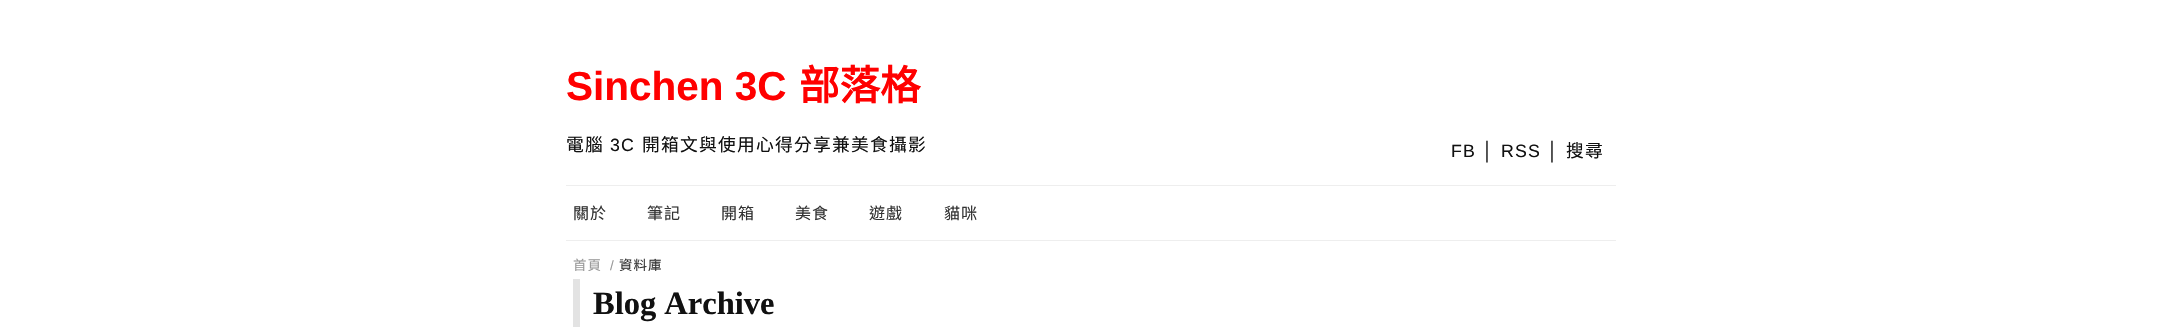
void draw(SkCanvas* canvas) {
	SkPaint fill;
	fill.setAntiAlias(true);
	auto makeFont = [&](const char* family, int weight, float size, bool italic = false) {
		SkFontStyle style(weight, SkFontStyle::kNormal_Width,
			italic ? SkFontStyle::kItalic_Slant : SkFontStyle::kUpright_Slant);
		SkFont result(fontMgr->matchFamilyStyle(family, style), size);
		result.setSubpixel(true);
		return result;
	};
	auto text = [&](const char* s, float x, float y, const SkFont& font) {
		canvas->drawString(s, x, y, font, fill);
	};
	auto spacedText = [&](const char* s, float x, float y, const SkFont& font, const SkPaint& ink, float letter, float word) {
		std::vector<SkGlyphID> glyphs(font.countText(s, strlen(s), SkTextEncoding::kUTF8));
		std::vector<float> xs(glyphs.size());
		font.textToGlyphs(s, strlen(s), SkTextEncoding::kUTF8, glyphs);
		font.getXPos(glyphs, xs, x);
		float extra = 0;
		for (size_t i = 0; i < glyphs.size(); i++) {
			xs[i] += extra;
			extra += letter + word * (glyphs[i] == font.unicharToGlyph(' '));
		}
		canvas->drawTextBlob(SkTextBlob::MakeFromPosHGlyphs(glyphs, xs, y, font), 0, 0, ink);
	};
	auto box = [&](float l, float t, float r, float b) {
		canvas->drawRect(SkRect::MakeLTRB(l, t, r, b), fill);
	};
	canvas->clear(0xFFFFFFFF);
	fill.setColor(0xFFEEEEEE);
	box(566, 185, 1616, 186);
	box(566, 240, 1616, 241);
	fill.setColor(0xFFE3E3E3);
	box(573, 279, 580, 327);
	auto font1 = makeFont("Liberation Sans", 700, 40.5f);
	fill.setColor(0xFFFF0000);
	text("Sinchen 3C", 566, 100, font1);
	auto font2 = makeFont("Noto Sans CJK TC", 700, 40.5f);
	text("部落格", 799, 100, font2);
	auto font3 = makeFont("Noto Sans CJK TC", 400, 17.75f);
	fill.setColor(0xFF111111);
	spacedText("電腦", 566, 151, font3, fill, 1.25f, 0);
	auto font4 = makeFont("Liberation Sans", 400, 17.75f);
	spacedText("3C", 610, 151, font4, fill, 1.25f, 0);
	spacedText("開箱文與使用心得分享兼美食攝影", 642, 151, font3, fill, 1.25f, 0);
	spacedText("FB │ RSS │", 1451, 157, font4, fill, 1.25f, 0);
	spacedText("搜尋", 1566, 157, font3, fill, 1.25f, 0);
	auto font5 = makeFont("Noto Sans CJK TC", 400, 16);
	fill.setColor(0xFF333333);
	spacedText("關於", 573, 219, font5, fill, 1, 0);
	spacedText("筆記", 647, 219, font5, fill, 1, 0);
	spacedText("開箱", 721, 219, font5, fill, 1, 0);
	spacedText("美食", 795, 219, font5, fill, 1, 0);
	spacedText("遊戲", 869, 219, font5, fill, 1, 0);
	spacedText("貓咪", 944, 219, font5, fill, 1, 0);
	auto font6 = makeFont("Noto Sans CJK TC", 400, 13.5f);
	fill.setColor(0xFF999999);
	spacedText("首頁", 573, 270, font6, fill, 1, 0);
	auto font7 = makeFont("Liberation Sans", 400, 13.5f);
	spacedText("/", 610, 270, font7, fill, 1, 0);
	fill.setColor(0xFF333333);
	spacedText("資料庫", 619, 270, font6, fill, 1, 0);
	auto font8 = makeFont("Liberation Serif", 700, 32.5f);
	fill.setColor(0xFF111111);
	text("Blog Archive", 593, 314, font8);
}
